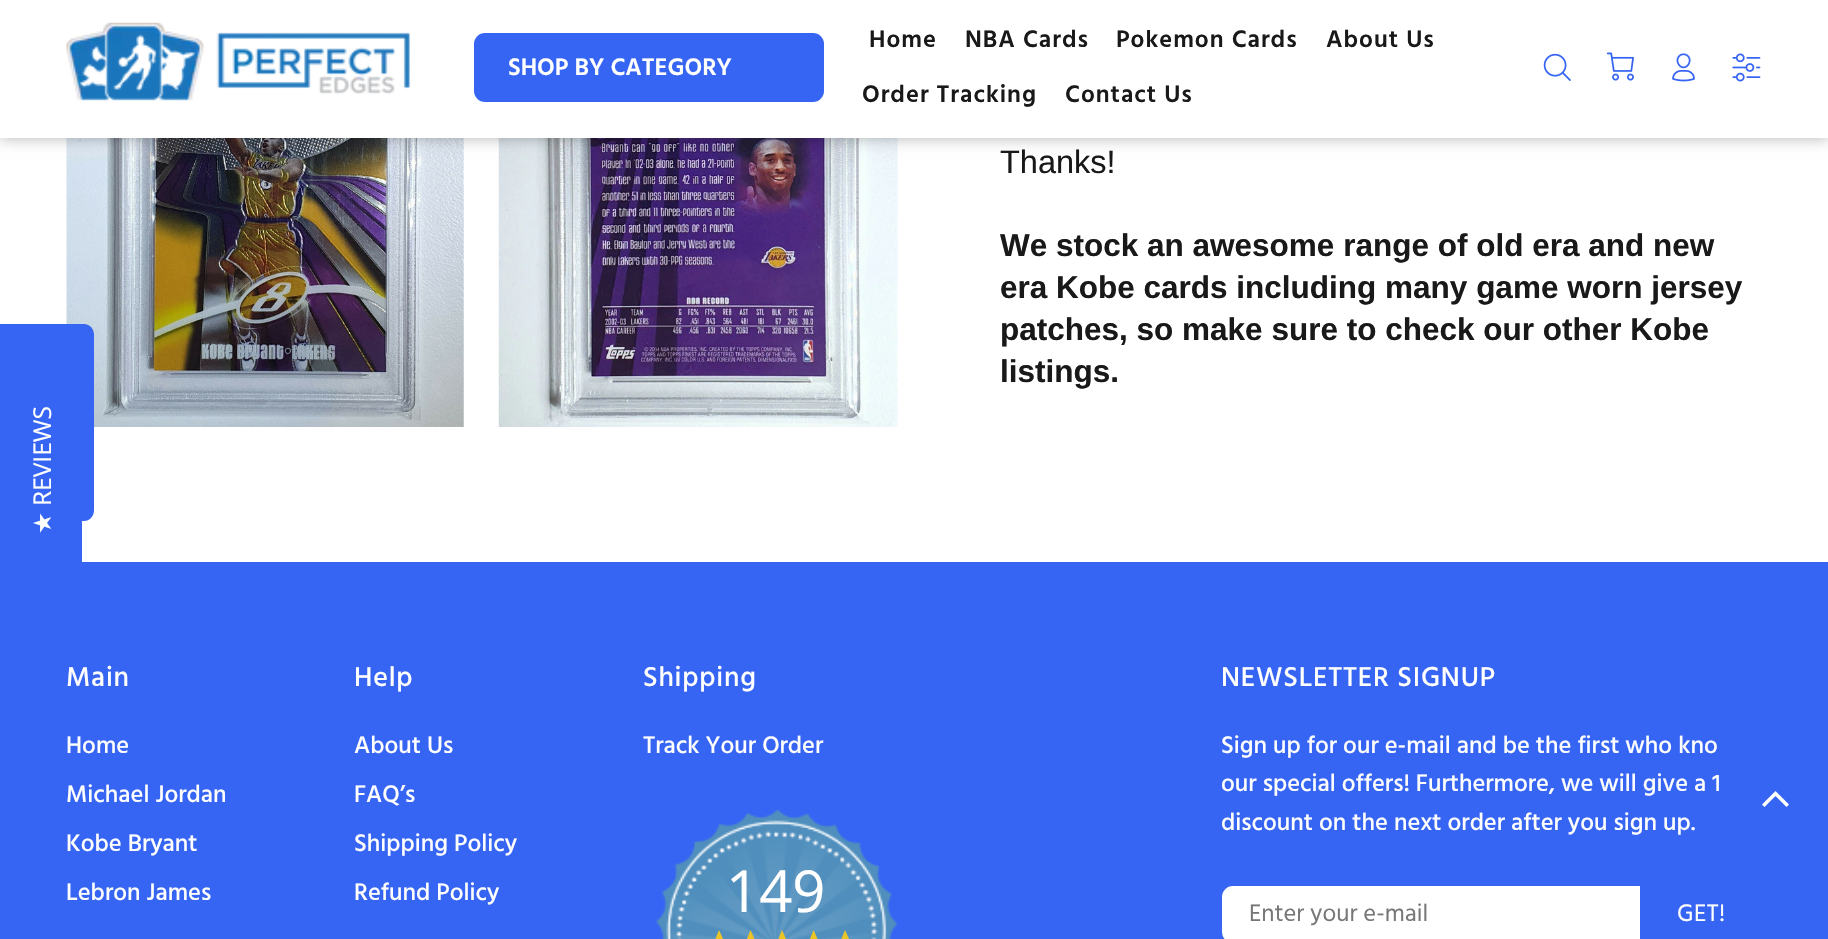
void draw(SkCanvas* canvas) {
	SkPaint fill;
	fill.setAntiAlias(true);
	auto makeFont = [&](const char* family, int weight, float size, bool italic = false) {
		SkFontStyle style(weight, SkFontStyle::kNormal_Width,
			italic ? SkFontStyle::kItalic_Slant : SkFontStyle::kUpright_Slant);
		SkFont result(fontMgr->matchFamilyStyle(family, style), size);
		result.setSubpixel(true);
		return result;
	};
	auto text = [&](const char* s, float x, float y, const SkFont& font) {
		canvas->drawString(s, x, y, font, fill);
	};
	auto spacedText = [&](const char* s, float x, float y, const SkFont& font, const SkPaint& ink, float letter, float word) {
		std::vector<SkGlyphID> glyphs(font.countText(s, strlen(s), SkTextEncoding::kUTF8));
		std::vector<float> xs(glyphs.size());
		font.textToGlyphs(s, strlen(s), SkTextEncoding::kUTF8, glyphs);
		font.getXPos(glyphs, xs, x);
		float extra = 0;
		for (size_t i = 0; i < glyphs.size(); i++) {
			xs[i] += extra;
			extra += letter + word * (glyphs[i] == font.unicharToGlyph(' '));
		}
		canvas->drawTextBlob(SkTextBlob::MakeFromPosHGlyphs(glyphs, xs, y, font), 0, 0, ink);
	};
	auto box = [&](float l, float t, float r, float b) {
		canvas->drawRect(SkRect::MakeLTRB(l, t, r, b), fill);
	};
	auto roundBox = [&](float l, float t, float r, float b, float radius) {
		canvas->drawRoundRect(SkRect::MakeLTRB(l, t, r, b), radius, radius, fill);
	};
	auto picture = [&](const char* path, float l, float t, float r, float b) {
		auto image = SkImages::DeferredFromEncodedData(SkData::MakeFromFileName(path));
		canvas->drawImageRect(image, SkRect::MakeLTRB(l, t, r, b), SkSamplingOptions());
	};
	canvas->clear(0xFFFFFFFF);
	picture("image5.png", 66, 138, 464, 427);
	picture("image6.png", 498, 138, 898, 427);
	fill.setColor(0x4D000000);
	fill.setMaskFilter(SkMaskFilter::MakeBlur(kNormal_SkBlurStyle, 7));
	canvas->drawRect(SkRect::MakeLTRB(0, 0, 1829, 138), fill);
	fill.setMaskFilter(nullptr);
	fill.setColor(0xFFFFFFFF);
	box(0, 0, 1828, 138);
	picture("image0.png", 66, 22, 410, 101);
	fill.setColor(0xFF3665F3);
	roundBox(474, 33, 824, 102, 11);
	picture("image1.png", 1543, 53, 1571, 81);
	picture("image2.png", 1606, 52, 1634, 81);
	picture("image3.png", 1672, 53, 1695, 82);
	picture("image4.png", 1732, 53, 1761, 82);
	canvas->drawPath(SkPathBuilder().moveTo(0, 521).lineTo(0, 324).lineTo(84, 324).cubicTo(90, 324, 94, 329, 94, 335).lineTo(94, 510).cubicTo(94, 516, 90, 521, 84, 521).close().detach(), fill);
	box(0, 521, 82, 562);
	box(0, 562, 1828, 939);
	picture("image7.png", 656, 810, 898, 939);
	fill.setColor(0xFFECC525);
	canvas->drawPath(SkPathBuilder().moveTo(728, 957).lineTo(719.5f, 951.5f).lineTo(710.5f, 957).lineTo(712.5f, 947.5f).lineTo(705, 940.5f).lineTo(715, 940).lineTo(719, 930).lineTo(723.5f, 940).lineTo(733.5f, 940.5f).lineTo(726.5f, 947).close().moveTo(759.5f, 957).lineTo(751, 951.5f).lineTo(742, 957).lineTo(744, 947.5f).lineTo(736.5f, 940.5f).lineTo(746.5f, 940).lineTo(750.5f, 930).lineTo(755, 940).lineTo(765, 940.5f).lineTo(758, 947).close().detach(), fill);
	canvas->drawPath(SkPathBuilder().moveTo(791, 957).lineTo(782.5f, 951.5f).lineTo(773.5f, 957).lineTo(775.5f, 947.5f).lineTo(768, 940.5f).lineTo(778, 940).lineTo(782, 930).lineTo(786.5f, 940).lineTo(796.5f, 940.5f).lineTo(789.5f, 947).close().moveTo(822.5f, 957).lineTo(814, 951.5f).lineTo(805, 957).lineTo(807, 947.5f).lineTo(799.5f, 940.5f).lineTo(809.5f, 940).lineTo(813.5f, 930).lineTo(818, 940).lineTo(828, 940.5f).lineTo(821, 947).close().detach(), fill);
	canvas->drawPath(SkPathBuilder().moveTo(854, 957).lineTo(845.5f, 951.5f).lineTo(836.5f, 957).lineTo(838.5f, 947.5f).lineTo(831, 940.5f).lineTo(841, 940).lineTo(845, 930).lineTo(849.5f, 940).lineTo(859.5f, 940.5f).lineTo(852.5f, 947).close().detach(), fill);
	fill.setColor(0xFFFFFFFF);
	canvas->drawPath(SkPathBuilder().moveTo(1233, 887).lineTo(1639, 887).lineTo(1639, 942).lineTo(1233, 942).cubicTo(1227.5f, 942, 1223, 937.5f, 1223, 932).lineTo(1223, 897).cubicTo(1223, 891.5f, 1227.5f, 887, 1233, 887).close().detach(), fill);
	fill.setStyle(SkPaint::kStroke_Style);
	fill.setStrokeWidth(2);
	canvas->drawPath(SkPathBuilder().moveTo(1233, 887).lineTo(1639, 887).lineTo(1639, 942).lineTo(1233, 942).cubicTo(1227.5f, 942, 1223, 937.5f, 1223, 932).lineTo(1223, 897).cubicTo(1223, 891.5f, 1227.5f, 887, 1233, 887).close().detach(), fill);
	fill.setStyle(SkPaint::kFill_Style);
	canvas->drawPath(SkPathBuilder().moveTo(1786.5f, 807).lineTo(1775.5f, 796).lineTo(1764.5f, 807).lineTo(1762, 804.5f).lineTo(1775.5f, 791).lineTo(1789, 804.5f).close().detach(), fill);
	auto font1 = makeFont("Hind", 600, 24.5f);
	text("SHOP BY CATEGORY", 508, 75, font1);
	fill.setColor(0xFF191919);
	spacedText("Home", 869, 47, font1, fill, 1, 0);
	spacedText("NBA Cards", 965, 47, font1, fill, 1, 0);
	spacedText("Pokemon Cards", 1116, 47, font1, fill, 1, 0);
	spacedText("About Us", 1326, 47, font1, fill, 1, 0);
	spacedText("Order Tracking", 862, 102, font1, fill, 1, 0);
	spacedText("Contact Us", 1065, 102, font1, fill, 1, 0);
	auto font2 = makeFont("Liberation Sans", 400, 32.5f);
	text("Thanks!", 1000, 173, font2);
	auto font3 = makeFont("Liberation Sans", 700, 31.5f);
	text("We stock an awesome range of old era and new", 1000, 256, font3);
	text("era Kobe cards including many game worn jersey", 1000, 298, font3);
	text("patches, so make sure to check our other Kobe", 1000, 340, font3);
	text("listings.", 1000, 382, font3);
	auto font4 = makeFont("Open Sans", 400, 24.5f);
	fill.setColor(0xFFFFFFFF);
	canvas->save();
	canvas->rotate(-90, 51, 506);
	text("REVIEWS", 51, 506, font4);
	canvas->restore();
	auto font5 = makeFont("DejaVu Sans", 400, 24.5f);
	canvas->save();
	canvas->rotate(-90, 51, 534);
	text("★", 51, 534, font5);
	canvas->restore();
	auto font6 = makeFont("Hind", 500, 28);
	spacedText("Main", 66, 686, font6, fill, 0.8f, 0);
	auto font7 = makeFont("Hind", 500, 24.5f);
	text("Home", 66, 753, font7);
	text("Michael Jordan", 66, 802, font7);
	text("Kobe Bryant", 66, 851, font7);
	text("Lebron James", 66, 900, font7);
	spacedText("Help", 354, 686, font6, fill, 0.8f, 0);
	text("About Us", 354, 753, font7);
	text("FAQ’s", 354, 802, font7);
	text("Shipping Policy", 354, 851, font7);
	text("Refund Policy", 354, 900, font7);
	spacedText("Shipping", 643, 686, font6, fill, 0.8f, 0);
	text("Track Your Order", 643, 753, font7);
	auto font8 = makeFont("Open Sans", 400, 58);
	text("149", 726, 912, font8);
	spacedText("NEWSLETTER SIGNUP", 1221, 686, font6, fill, 0.8f, 0);
	text("Sign up for our e-mail and be the first who kno", 1221, 753, font7);
	text("our special offers! Furthermore, we will give a 1", 1221, 791, font7);
	text("discount on the next order after you sign up.", 1221, 830, font7);
	auto font9 = makeFont("Hind", 400, 24.5f);
	fill.setColor(0xFF777777);
	text("Enter your e-mail", 1249, 921, font9);
	fill.setColor(0xFFFFFFFF);
	spacedText("GET!", 1677, 921, font9, fill, 0.5f, 0);
}
